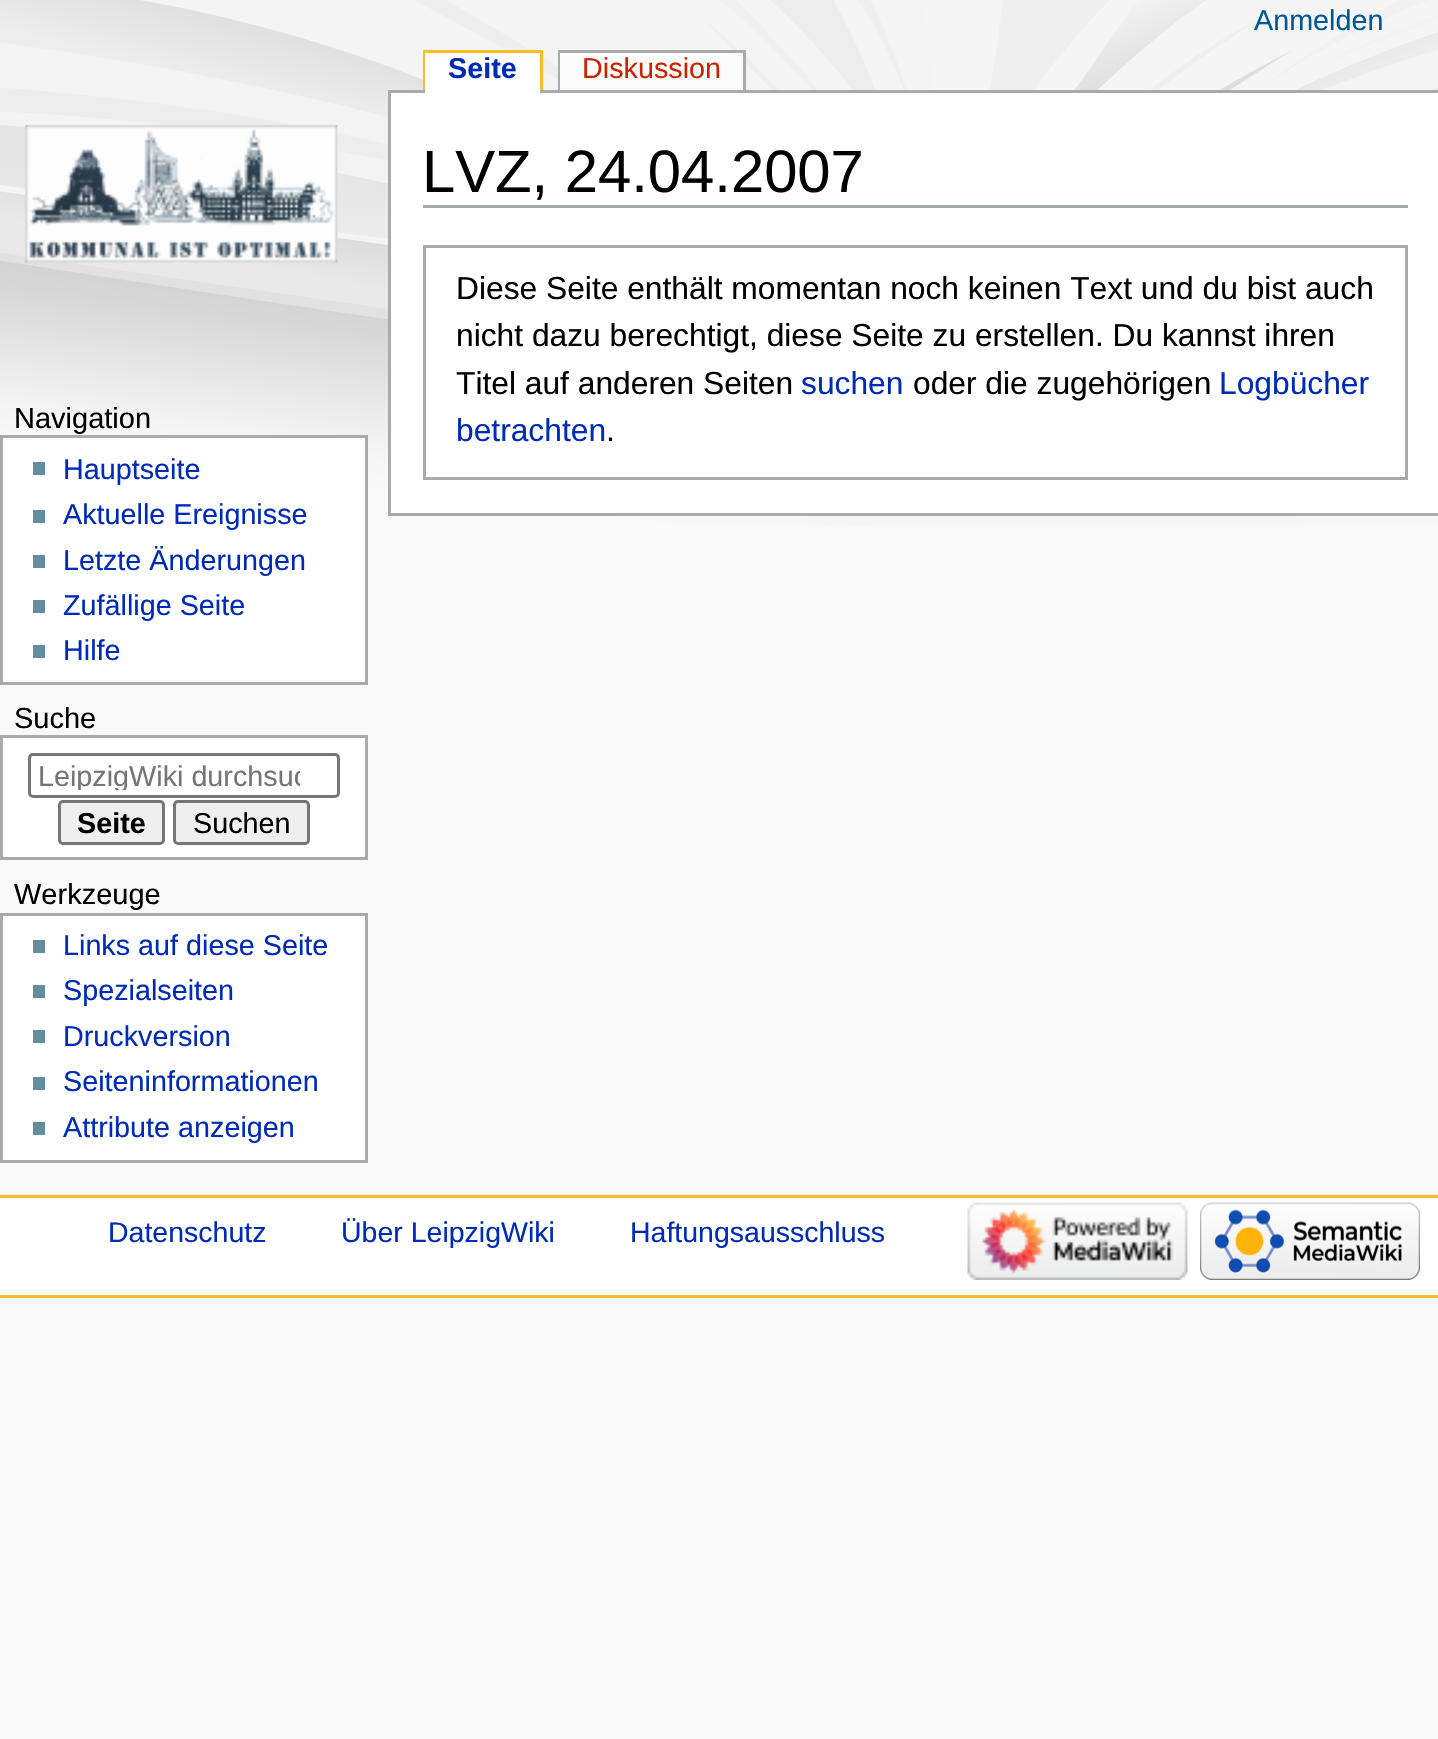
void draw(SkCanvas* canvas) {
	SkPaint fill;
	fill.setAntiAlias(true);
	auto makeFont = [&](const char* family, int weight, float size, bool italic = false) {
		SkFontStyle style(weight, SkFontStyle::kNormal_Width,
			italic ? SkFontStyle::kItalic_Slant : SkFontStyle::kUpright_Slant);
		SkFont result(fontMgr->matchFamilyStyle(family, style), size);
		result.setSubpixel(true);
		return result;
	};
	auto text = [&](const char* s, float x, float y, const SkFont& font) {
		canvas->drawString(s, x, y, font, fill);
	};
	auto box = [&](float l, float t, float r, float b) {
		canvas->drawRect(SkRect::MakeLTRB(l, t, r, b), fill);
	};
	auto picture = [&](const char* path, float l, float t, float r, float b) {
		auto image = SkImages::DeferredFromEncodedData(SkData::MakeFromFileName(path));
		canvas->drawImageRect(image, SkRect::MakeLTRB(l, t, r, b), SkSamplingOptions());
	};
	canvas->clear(0xFFF9F9F9);
	picture("image0.png", 0, 0, 1438, 525);
	fill.setColor(0xFFFABD23);
	box(423, 50, 543, 53);
	box(540, 50, 543, 90);
	box(423, 50, 426, 90);
	fill.setColor(0xFFAAAAAA);
	box(388, 90, 1438, 93);
	fill.setColor(0xFFFFFFFF);
	box(425, 53, 540, 93);
	fill.setColor(0xFFAAAAAA);
	box(558, 50, 745, 53);
	box(743, 50, 746, 90);
	box(558, 50, 561, 90);
	fill.setColor(0xFFFBFBFB);
	box(560, 53, 743, 90);
	picture("image1.png", 25, 125, 338, 263);
	fill.setColor(0xFFFFFFFF);
	canvas->drawRect(SkRect::MakeLTRB(1.5f, 436.5f, 366.5f, 683.5f), fill);
	fill.setStyle(SkPaint::kStroke_Style);
	fill.setStrokeWidth(3);
	fill.setColor(0xFFAAAAAA);
	canvas->drawRect(SkRect::MakeLTRB(1.5f, 436.5f, 366.5f, 683.5f), fill);
	fill.setStyle(SkPaint::kFill_Style);
	fill.setColor(0xFF638C9C);
	box(33, 462, 45, 475);
	box(33, 510, 45, 523);
	box(33, 555, 45, 568);
	box(33, 600, 45, 613);
	box(33, 645, 45, 658);
	fill.setColor(0xFFFFFFFF);
	canvas->drawRect(SkRect::MakeLTRB(1.5f, 736.5f, 366.5f, 858.5f), fill);
	fill.setStyle(SkPaint::kStroke_Style);
	fill.setColor(0xFFAAAAAA);
	canvas->drawRect(SkRect::MakeLTRB(1.5f, 736.5f, 366.5f, 858.5f), fill);
	fill.setColor(0xFF767676);
	canvas->drawRoundRect(SkRect::MakeLTRB(29.5f, 754.5f, 338.5f, 796.5f), 3.5f, 3.5f, fill);
	fill.setStyle(SkPaint::kFill_Style);
	fill.setColor(0xFFEFEFEF);
	canvas->drawRoundRect(SkRect::MakeLTRB(59.5f, 801.5f, 163.5f, 843.5f), 3.5f, 3.5f, fill);
	fill.setStyle(SkPaint::kStroke_Style);
	fill.setColor(0xFF767676);
	canvas->drawRoundRect(SkRect::MakeLTRB(59.5f, 801.5f, 163.5f, 843.5f), 3.5f, 3.5f, fill);
	fill.setStyle(SkPaint::kFill_Style);
	fill.setColor(0xFFEFEFEF);
	canvas->drawRoundRect(SkRect::MakeLTRB(174.5f, 801.5f, 308.5f, 843.5f), 3.5f, 3.5f, fill);
	fill.setStyle(SkPaint::kStroke_Style);
	fill.setColor(0xFF767676);
	canvas->drawRoundRect(SkRect::MakeLTRB(174.5f, 801.5f, 308.5f, 843.5f), 3.5f, 3.5f, fill);
	fill.setStyle(SkPaint::kFill_Style);
	fill.setColor(0xFFFFFFFF);
	canvas->drawRect(SkRect::MakeLTRB(1.5f, 914.5f, 366.5f, 1161.5f), fill);
	fill.setStyle(SkPaint::kStroke_Style);
	fill.setColor(0xFFAAAAAA);
	canvas->drawRect(SkRect::MakeLTRB(1.5f, 914.5f, 366.5f, 1161.5f), fill);
	fill.setStyle(SkPaint::kFill_Style);
	fill.setColor(0xFF638C9C);
	box(33, 940, 45, 953);
	box(33, 985, 45, 998);
	box(33, 1030, 45, 1043);
	box(33, 1077, 45, 1090);
	box(33, 1122, 45, 1135);
	fill.setColor(0xFFFFFFFF);
	box(391, 93, 1438, 513);
	fill.setColor(0xFFAAAAAA);
	box(388, 513, 1438, 516);
	box(388, 90, 391, 515);
	fill.setColor(0xFFA2A9B1);
	box(423, 205, 1408, 208);
	fill.setStyle(SkPaint::kStroke_Style);
	fill.setColor(0xFFAAAAAA);
	canvas->drawRect(SkRect::MakeLTRB(424.5f, 246.5f, 1406.5f, 478.5f), fill);
	fill.setStyle(SkPaint::kFill_Style);
	fill.setColor(0xFFFFFFFF);
	box(0, 1198, 1438, 1295);
	fill.setColor(0xFFFABD23);
	box(0, 1195, 1438, 1198);
	box(0, 1295, 1438, 1298);
	picture("image2.png", 967, 1202, 1188, 1280);
	picture("image3.png", 1200, 1202, 1420, 1280);
	auto font1 = makeFont("Liberation Sans", 400, 28.75f);
	fill.setColor(0xFF005896);
	text("Anmelden", 1254, 30, font1);
	auto font2 = makeFont("Liberation Sans", 700, 28.75f);
	fill.setColor(0xFF002BB8);
	text("Seite", 448, 78, font2);
	fill.setColor(0xFFCC2200);
	text("Diskussion", 582, 78, font1);
	auto font3 = makeFont("Liberation Sans", 400, 29);
	fill.setColor(0xFF000000);
	text("Navigation", 14, 428, font3);
	fill.setColor(0xFF002BB8);
	text("Hauptseite", 63, 479, font1);
	text("Aktuelle Ereignisse", 63, 524, font1);
	text("Letzte Änderungen", 63, 570, font1);
	text("Zufällige Seite", 63, 615, font1);
	text("Hilfe", 63, 660, font1);
	fill.setColor(0xFF000000);
	text("Suche", 14, 728, font3);
	canvas->save();
	canvas->clipRect(SkRect::MakeLTRB(38, 760, 300, 790));
	fill.setColor(0xFF757575);
	text("LeipzigWiki durchsuc", 38, 786, font1);
	canvas->restore();
	fill.setColor(0xFF000000);
	text("Seite", 77, 833, font2);
	text("Suchen", 193, 833, font1);
	text("Werkzeuge", 14, 904, font3);
	fill.setColor(0xFF002BB8);
	text("Links auf diese Seite", 63, 955, font1);
	text("Spezialseiten", 63, 1000, font1);
	text("Druckversion", 63, 1046, font1);
	text("Seiteninformationen", 63, 1091, font1);
	text("Attribute anzeigen", 63, 1137, font1);
	auto font4 = makeFont("Liberation Sans", 400, 59.75f);
	fill.setColor(0xFF000000);
	text("LVZ, 24.04.2007", 422, 192, font4);
	auto font5 = makeFont("Liberation Sans", 400, 31.75f);
	text("Diese Seite enthält momentan noch keinen Text und du bist auch", 456, 299, font5);
	text("nicht dazu berechtigt, diese Seite zu erstellen. Du kannst ihren", 456, 346, font5);
	text("Titel auf anderen Seiten", 456, 394, font5);
	fill.setColor(0xFF002BB8);
	text("suchen", 801, 394, font5);
	fill.setColor(0xFF000000);
	text("oder die zugehörigen", 913, 394, font5);
	fill.setColor(0xFF002BB8);
	text("Logbücher", 1219, 394, font5);
	text("betrachten", 456, 441, font5);
	fill.setColor(0xFF000000);
	text(".", 606, 441, font5);
	auto font6 = makeFont("Liberation Sans", 400, 28.5f);
	fill.setColor(0xFF002BB8);
	text("Datenschutz", 108, 1242, font6);
	text("Über LeipzigWiki", 341, 1242, font6);
	text("Haftungsausschluss", 630, 1242, font6);
}
